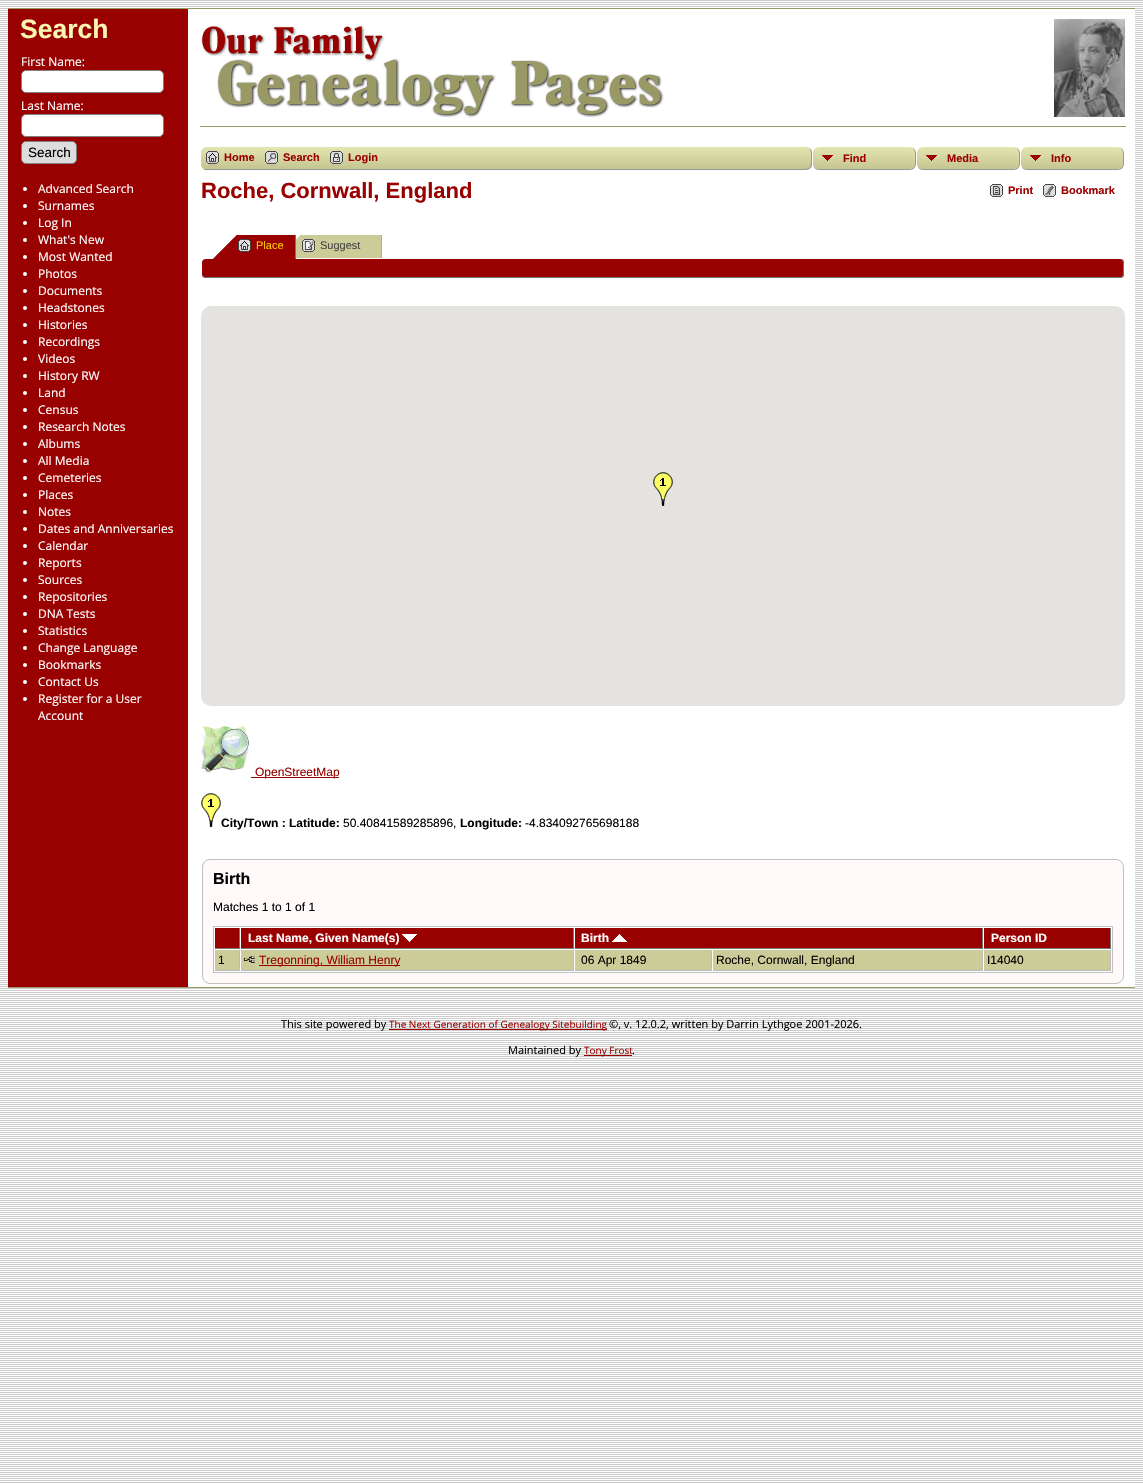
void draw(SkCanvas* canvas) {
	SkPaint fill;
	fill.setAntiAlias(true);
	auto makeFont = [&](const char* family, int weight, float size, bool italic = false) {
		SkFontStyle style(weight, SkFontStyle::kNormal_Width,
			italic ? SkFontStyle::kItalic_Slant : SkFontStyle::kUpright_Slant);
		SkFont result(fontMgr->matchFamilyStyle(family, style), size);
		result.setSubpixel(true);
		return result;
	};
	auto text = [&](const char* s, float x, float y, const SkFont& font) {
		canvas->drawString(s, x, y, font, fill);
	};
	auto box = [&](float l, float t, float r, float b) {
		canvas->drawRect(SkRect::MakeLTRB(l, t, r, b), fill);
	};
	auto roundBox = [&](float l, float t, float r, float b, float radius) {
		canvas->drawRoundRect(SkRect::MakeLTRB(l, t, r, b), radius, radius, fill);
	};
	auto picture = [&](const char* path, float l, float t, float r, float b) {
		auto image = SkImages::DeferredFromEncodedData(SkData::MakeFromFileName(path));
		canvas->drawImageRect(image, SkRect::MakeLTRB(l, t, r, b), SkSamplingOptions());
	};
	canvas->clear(0xFFFFFFFF);
	picture("image0.png", 0, 0, 1143, 1483);
	fill.setColor(0xFFFFFFFF);
	box(188, 10, 1135, 987);
	fill.setColor(0xFF999966);
	box(8, 8, 1135, 9);
	fill.setColor(0xFF990000);
	box(8, 9, 188, 987);
	fill.setColor(0xFFFFFFFF);
	canvas->drawRoundRect(SkRect::MakeLTRB(21.5f, 70.5f, 163.5f, 92.5f), 4.5f, 4.5f, fill);
	fill.setStyle(SkPaint::kStroke_Style);
	fill.setStrokeWidth(1);
	fill.setColor(0xFF808080);
	canvas->drawRoundRect(SkRect::MakeLTRB(21.5f, 70.5f, 163.5f, 92.5f), 4.5f, 4.5f, fill);
	fill.setStyle(SkPaint::kFill_Style);
	fill.setColor(0xFFFFFFFF);
	canvas->drawRoundRect(SkRect::MakeLTRB(21.5f, 114.5f, 163.5f, 136.5f), 4.5f, 4.5f, fill);
	fill.setStyle(SkPaint::kStroke_Style);
	fill.setColor(0xFF808080);
	canvas->drawRoundRect(SkRect::MakeLTRB(21.5f, 114.5f, 163.5f, 136.5f), 4.5f, 4.5f, fill);
	fill.setStyle(SkPaint::kFill_Style);
	fill.setColor(0xFFDDDDDD);
	canvas->drawRoundRect(SkRect::MakeLTRB(21.5f, 141.5f, 76.5f, 163.5f), 4.5f, 4.5f, fill);
	fill.setStyle(SkPaint::kStroke_Style);
	fill.setColor(0xFF808080);
	canvas->drawRoundRect(SkRect::MakeLTRB(21.5f, 141.5f, 76.5f, 163.5f), 4.5f, 4.5f, fill);
	fill.setStyle(SkPaint::kFill_Style);
	fill.setColor(0xFFFFFFFF);
	canvas->drawCircle(25, 189, 2, fill);
	canvas->drawCircle(25, 206, 2, fill);
	canvas->drawCircle(25, 223, 2, fill);
	canvas->drawCircle(25, 240, 2, fill);
	canvas->drawCircle(25, 257, 2, fill);
	canvas->drawCircle(25, 274, 2, fill);
	canvas->drawCircle(25, 291, 2, fill);
	canvas->drawCircle(25, 308, 2, fill);
	canvas->drawCircle(25, 325, 2, fill);
	canvas->drawCircle(25, 342, 2, fill);
	canvas->drawCircle(25, 359, 2, fill);
	canvas->drawCircle(25, 376, 2, fill);
	canvas->drawCircle(25, 393, 2, fill);
	canvas->drawCircle(25, 410, 2, fill);
	canvas->drawCircle(25, 427, 2, fill);
	canvas->drawCircle(25, 444, 2, fill);
	canvas->drawCircle(25, 461, 2, fill);
	canvas->drawCircle(25, 478, 2, fill);
	canvas->drawCircle(25, 495, 2, fill);
	canvas->drawCircle(25, 512, 2, fill);
	canvas->drawCircle(25, 529, 2, fill);
	canvas->drawCircle(25, 546, 2, fill);
	canvas->drawCircle(25, 563, 2, fill);
	canvas->drawCircle(25, 580, 2, fill);
	canvas->drawCircle(25, 597, 2, fill);
	canvas->drawCircle(25, 614, 2, fill);
	canvas->drawCircle(25, 631, 2, fill);
	canvas->drawCircle(25, 648, 2, fill);
	canvas->drawCircle(25, 665, 2, fill);
	canvas->drawCircle(25, 682, 2, fill);
	canvas->drawCircle(25, 699, 2, fill);
	picture("image1.png", 201, 25, 664, 118);
	picture("image2.png", 1054, 19, 1125, 117);
	fill.setColor(0xFF999966);
	box(200, 126, 1126, 127);
	fill.setColor(0xFFCCCC99);
	roundBox(201, 147, 1125, 170, 6);
	canvas->save();
	canvas->clipPath(SkPathBuilder().moveTo(207, 147).lineTo(1119, 147).cubicTo(1122.5f, 147, 1125, 149.5f, 1125, 153).lineTo(1125, 164).cubicTo(1125, 167.5f, 1122.5f, 170, 1119, 170).lineTo(207, 170).cubicTo(203.5f, 170, 201, 167.5f, 201, 164).lineTo(201, 153).cubicTo(201, 149.5f, 203.5f, 147, 207, 147).close().detach(), true);
	{
		const SkColor colors[] = {0xFFE5E5B1, 0xFFC5C591};
		const float stops[] = {0, 1};
		const SkPoint ends[] = {{663, 147}, {663, 169}};
		fill.setShader(SkGradientShader::MakeLinear(ends, colors, stops, 2, SkTileMode::kClamp));
		fill.setAlpha(255);
	}
	canvas->drawPath(SkPathBuilder().moveTo(207, 147).lineTo(1119, 147).cubicTo(1122.5f, 147, 1125, 149.5f, 1125, 153).lineTo(1125, 169).lineTo(201, 169).lineTo(201, 153).cubicTo(201, 149.5f, 203.5f, 147, 207, 147).close().detach(), fill);
	canvas->restore();
	fill.setShader(nullptr);
	fill.setColor(0xFF999999);
	box(204, 169, 801, 170);
	picture("image3.png", 206, 151, 219, 166);
	picture("image4.png", 265, 151, 278, 166);
	picture("image5.png", 330, 151, 343, 166);
	fill.setColor(0xFFFFFFFF);
	box(806, 147, 1125, 170);
	canvas->save();
	canvas->clipPath(SkPathBuilder().moveTo(801, 147).lineTo(806, 147).cubicTo(809.5f, 147, 812, 149.5f, 812, 153).lineTo(812, 164).cubicTo(812, 167.5f, 809.5f, 170, 806, 170).lineTo(801, 170).close().detach(), true);
	{
		const SkColor colors[] = {0xFFE5E5B1, 0xFFC5C591};
		const float stops[] = {0, 1};
		const SkPoint ends[] = {{806, 147}, {806, 169}};
		fill.setShader(SkGradientShader::MakeLinear(ends, colors, stops, 2, SkTileMode::kClamp));
		fill.setAlpha(255);
	}
	box(801, 147, 812, 169);
	{
		const SkColor colors[] = {0xFFE5E5B1, 0xFFC5C591};
		const float stops[] = {0, 1};
		const SkPoint ends[] = {{806, 169}, {806, 191}};
		fill.setShader(SkGradientShader::MakeLinear(ends, colors, stops, 2, SkTileMode::kClamp));
		fill.setAlpha(255);
	}
	box(801, 169, 812, 170);
	canvas->restore();
	fill.setShader(nullptr);
	fill.setColor(0xFF999999);
	canvas->drawPath(SkPathBuilder(SkPathFillType::kEvenOdd).moveTo(801, 147).cubicTo(805, 147, 811, 146.5f, 812, 152).lineTo(812, 165).cubicTo(811, 170.5f, 805, 170, 801, 170).close().moveTo(801, 147).lineTo(807, 147).cubicTo(812, 148.5f, 811, 155, 811, 158.5f).cubicTo(811, 168.5f, 810.5f, 169, 801, 169).close().detach(), fill);
	picture("image6.png", 813, 147, 915, 169);
	canvas->drawPath(SkPathBuilder(SkPathFillType::kEvenOdd).moveTo(819, 147).lineTo(910, 147).cubicTo(913, 147, 916, 150, 916, 153).lineTo(916, 164).cubicTo(916, 167, 913, 170, 910, 170).lineTo(819, 170).cubicTo(816, 170, 813, 167, 813, 164).lineTo(813, 153).cubicTo(813, 150, 816, 147, 819, 147).close().moveTo(819, 147).lineTo(910, 147).cubicTo(913, 147, 915, 150, 915, 153).lineTo(915, 164).cubicTo(915, 167, 913, 169, 910, 169).lineTo(819, 169).cubicTo(816, 169, 813, 167, 813, 164).lineTo(813, 153).cubicTo(813, 150, 816, 147, 819, 147).close().detach(), fill);
	picture("image7.png", 917, 147, 1019, 169);
	canvas->drawPath(SkPathBuilder(SkPathFillType::kEvenOdd).moveTo(923, 147).lineTo(1014, 147).cubicTo(1017, 147, 1020, 150, 1020, 153).lineTo(1020, 164).cubicTo(1020, 167, 1017, 170, 1014, 170).lineTo(923, 170).cubicTo(920, 170, 917, 167, 917, 164).lineTo(917, 153).cubicTo(917, 150, 920, 147, 923, 147).close().moveTo(923, 147).lineTo(1014, 147).cubicTo(1017, 147, 1019, 150, 1019, 153).lineTo(1019, 164).cubicTo(1019, 167, 1017, 169, 1014, 169).lineTo(923, 169).cubicTo(920, 169, 917, 167, 917, 164).lineTo(917, 153).cubicTo(917, 150, 920, 147, 923, 147).close().detach(), fill);
	picture("image6.png", 1021, 147, 1123, 169);
	canvas->drawPath(SkPathBuilder(SkPathFillType::kEvenOdd).moveTo(1027, 147).lineTo(1118, 147).cubicTo(1121, 147, 1124, 150, 1124, 153).lineTo(1124, 164).cubicTo(1124, 167, 1121, 170, 1118, 170).lineTo(1027, 170).cubicTo(1024, 170, 1021, 167, 1021, 164).lineTo(1021, 153).cubicTo(1021, 150, 1024, 147, 1027, 147).close().moveTo(1027, 147).lineTo(1118, 147).cubicTo(1121, 147, 1123, 150, 1123, 153).lineTo(1123, 164).cubicTo(1123, 167, 1121, 169, 1118, 169).lineTo(1027, 169).cubicTo(1024, 169, 1021, 167, 1021, 164).lineTo(1021, 153).cubicTo(1021, 150, 1024, 147, 1027, 147).close().detach(), fill);
	picture("image8.png", 990, 184, 1003, 199);
	picture("image9.png", 1043, 184, 1056, 199);
	picture("image10.png", 213, 235, 295, 259);
	fill.setColor(0xFF777777);
	box(295, 235, 296, 259);
	picture("image11.png", 238, 239, 251, 252);
	picture("image12.png", 296, 235, 381, 258);
	fill.setColor(0xFFAAAAAA);
	box(381, 235, 382, 258);
	picture("image13.png", 302, 239, 315, 252);
	fill.setColor(0xFF990000);
	roundBox(202, 259, 1124, 278, 4);
	fill.setColor(0xFF777777);
	canvas->drawPath(SkPathBuilder(SkPathFillType::kEvenOdd).moveTo(206, 259).lineTo(1120, 259).cubicTo(1122, 259, 1124, 261, 1124, 263).lineTo(1124, 274).cubicTo(1124, 276, 1122, 278, 1120, 278).lineTo(206, 278).cubicTo(204, 278, 202, 276, 202, 274).lineTo(202, 263).cubicTo(202, 261, 204, 259, 206, 259).close().moveTo(206, 259).lineTo(1120, 259).cubicTo(1122, 259, 1123, 261, 1123, 263).lineTo(1123, 274).cubicTo(1123, 276, 1122, 277, 1120, 277).lineTo(206, 277).cubicTo(204, 277, 202, 276, 202, 274).lineTo(202, 263).cubicTo(202, 261, 204, 259, 206, 259).close().detach(), fill);
	fill.setColor(0xFFE5E3DF);
	roundBox(201, 306, 1125, 706, 10);
	picture("image14.png", 653, 472, 673, 506);
	picture("image15.png", 201, 726, 250, 773);
	fill.setColor(0xFF990000);
	box(251, 777, 339, 778);
	picture("image16.png", 201, 793, 221, 827);
	fill.setColor(0xFFFFF9F9);
	canvas->drawRoundRect(SkRect::MakeLTRB(202.5f, 859.5f, 1123.5f, 983.5f), 7.5f, 7.5f, fill);
	fill.setStyle(SkPaint::kStroke_Style);
	fill.setColor(0xFFC0C0C0);
	canvas->drawRoundRect(SkRect::MakeLTRB(202.5f, 859.5f, 1123.5f, 983.5f), 7.5f, 7.5f, fill);
	fill.setStyle(SkPaint::kFill_Style);
	fill.setColor(0xFFFFFFFF);
	canvas->drawRect(SkRect::MakeLTRB(213.5f, 926.5f, 1112.5f, 972.5f), fill);
	fill.setStyle(SkPaint::kStroke_Style);
	fill.setColor(0xFFC0C0C0);
	canvas->drawRect(SkRect::MakeLTRB(213.5f, 926.5f, 1112.5f, 972.5f), fill);
	fill.setStyle(SkPaint::kFill_Style);
	fill.setColor(0xFF990000);
	box(215, 928, 239, 948);
	fill.setColor(0xFF777777);
	box(239, 928, 240, 949);
	box(215, 948, 240, 949);
	fill.setColor(0xFF990000);
	box(241, 928, 573, 948);
	fill.setColor(0xFF777777);
	box(573, 928, 574, 949);
	box(241, 948, 574, 949);
	picture("image17.png", 402, 934, 417, 942);
	fill.setColor(0xFF990000);
	box(575, 928, 982, 948);
	fill.setColor(0xFF777777);
	box(982, 928, 983, 949);
	box(575, 948, 983, 949);
	picture("image18.png", 612, 934, 627, 942);
	fill.setColor(0xFF990000);
	box(984, 928, 1110, 948);
	fill.setColor(0xFF777777);
	box(1110, 928, 1111, 949);
	box(984, 948, 1111, 949);
	fill.setColor(0xFFCCCC99);
	box(215, 950, 239, 970);
	fill.setColor(0xFFBBBBBB);
	box(239, 950, 240, 971);
	box(215, 970, 240, 971);
	fill.setColor(0xFFCCCC99);
	box(241, 950, 573, 970);
	fill.setColor(0xFFBBBBBB);
	box(573, 950, 574, 971);
	box(241, 970, 574, 971);
	picture("image19.png", 244, 956, 255, 963);
	fill.setColor(0xFF990000);
	box(259, 965, 400, 966);
	fill.setColor(0xFFCCCC99);
	box(575, 950, 711, 970);
	fill.setColor(0xFFBBBBBB);
	box(711, 950, 712, 971);
	box(575, 970, 712, 971);
	fill.setColor(0xFFCCCC99);
	box(713, 950, 982, 970);
	fill.setColor(0xFFBBBBBB);
	box(982, 950, 983, 971);
	box(713, 970, 983, 971);
	fill.setColor(0xFFCCCC99);
	box(984, 950, 1110, 970);
	fill.setColor(0xFFBBBBBB);
	box(1110, 950, 1111, 971);
	box(984, 970, 1111, 971);
	fill.setColor(0xFF999966);
	box(8, 987, 1135, 988);
	fill.setColor(0xFF990000);
	box(389, 1029, 607, 1030);
	box(584, 1055, 632, 1056);
	auto font1 = makeFont("Liberation Sans", 700, 26.5f);
	fill.setColor(0xFFF8F8B2);
	text("Search", 20, 38, font1);
	auto font2 = makeFont("Open Sans", 400, 12);
	fill.setColor(0xFFFFFFFF);
	text("First Name:", 21, 66, font2);
	text("Last Name:", 21, 110, font2);
	auto font3 = makeFont("Liberation Sans", 400, 13.5f);
	fill.setColor(0xFF000000);
	text("Search", 28, 157, font3);
	fill.setColor(0xFFFFFFFF);
	text("Advanced Search", 38, 193, font2);
	text("Surnames", 38, 210, font2);
	text("Log In", 38, 227, font2);
	text("What's New", 38, 244, font2);
	text("Most Wanted", 38, 261, font2);
	text("Photos", 38, 278, font2);
	text("Documents", 38, 295, font2);
	text("Headstones", 38, 312, font2);
	text("Histories", 38, 329, font2);
	text("Recordings", 38, 346, font2);
	text("Videos", 38, 363, font2);
	text("History RW", 38, 380, font2);
	text("Land", 38, 397, font2);
	text("Census", 38, 414, font2);
	text("Research Notes", 38, 431, font2);
	text("Albums", 38, 448, font2);
	text("All Media", 38, 465, font2);
	text("Cemeteries", 38, 482, font2);
	text("Places", 38, 499, font2);
	text("Notes", 38, 516, font2);
	text("Dates and Anniversaries", 38, 533, font2);
	text("Calendar", 38, 550, font2);
	text("Reports", 38, 567, font2);
	text("Sources", 38, 584, font2);
	text("Repositories", 38, 601, font2);
	text("DNA Tests", 38, 618, font2);
	text("Statistics", 38, 635, font2);
	text("Change Language", 38, 652, font2);
	text("Bookmarks", 38, 669, font2);
	text("Contact Us", 38, 686, font2);
	text("Register for a User", 38, 703, font2);
	text("Account", 38, 720, font2);
	auto font4 = makeFont("Liberation Sans", 700, 11);
	fill.setColor(0xFF990000);
	text("Home", 224, 161, font4);
	text("Search", 283, 161, font4);
	text("Login", 348, 161, font4);
	text("Find", 843, 162, font4);
	text("Media", 947, 162, font4);
	text("Info", 1051, 162, font4);
	auto font5 = makeFont("Liberation Sans", 700, 22);
	text("Roche, Cornwall, England", 201, 198, font5);
	text("Print", 1008, 194, font4);
	text("Bookmark", 1061, 194, font4);
	auto font6 = makeFont("Liberation Sans", 400, 11);
	fill.setColor(0xFFFFCC00);
	text("Place", 256, 249, font6);
	fill.setColor(0xFF444444);
	text("Suggest", 320, 249, font6);
	auto font7 = makeFont("Liberation Sans", 400, 12);
	fill.setColor(0xFF990000);
	text("OpenStreetMap", 255, 776, font7);
	auto font8 = makeFont("Liberation Sans", 700, 12);
	fill.setColor(0xFF000000);
	text("City/Town : Latitude:", 221, 827, font8);
	text("50.40841589285896,", 343, 827, font7);
	text("Longitude:", 460, 827, font8);
	text("-4.834092765698188", 525, 827, font7);
	auto font9 = makeFont("Liberation Sans", 700, 16);
	text("Birth", 213, 884, font9);
	text("Matches 1 to 1 of 1", 213, 911, font7);
	fill.setColor(0xFFFFFFFF);
	text("Last Name, Given Name(s)", 248, 942, font8);
	text("Birth", 581, 942, font8);
	text("Person ID", 991, 942, font8);
	fill.setColor(0xFF000000);
	text("1", 218, 964, font7);
	fill.setColor(0xFF990000);
	text("Tregonning, William Henry", 259, 964, font7);
	fill.setColor(0xFF000000);
	text("06 Apr 1849", 581, 964, font7);
	text("Roche, Cornwall, England", 716, 964, font7);
	text("I14040", 987, 964, font7);
	auto font10 = makeFont("Open Sans", 400, 11);
	text("This site powered by", 281, 1028, font10);
	auto font11 = makeFont("Open Sans", 400, 10);
	fill.setColor(0xFF990000);
	text("The Next Generation of Genealogy Sitebuilding", 389, 1028, font11);
	fill.setColor(0xFF000000);
	text("©, v. 12.0.2, written by Darrin Lythgoe 2001-2026.", 609, 1028, font10);
	text("Maintained by", 508, 1054, font10);
	fill.setColor(0xFF990000);
	text("Tony Frost", 584, 1054, font11);
	fill.setColor(0xFF000000);
	text(".", 632, 1054, font10);
}
